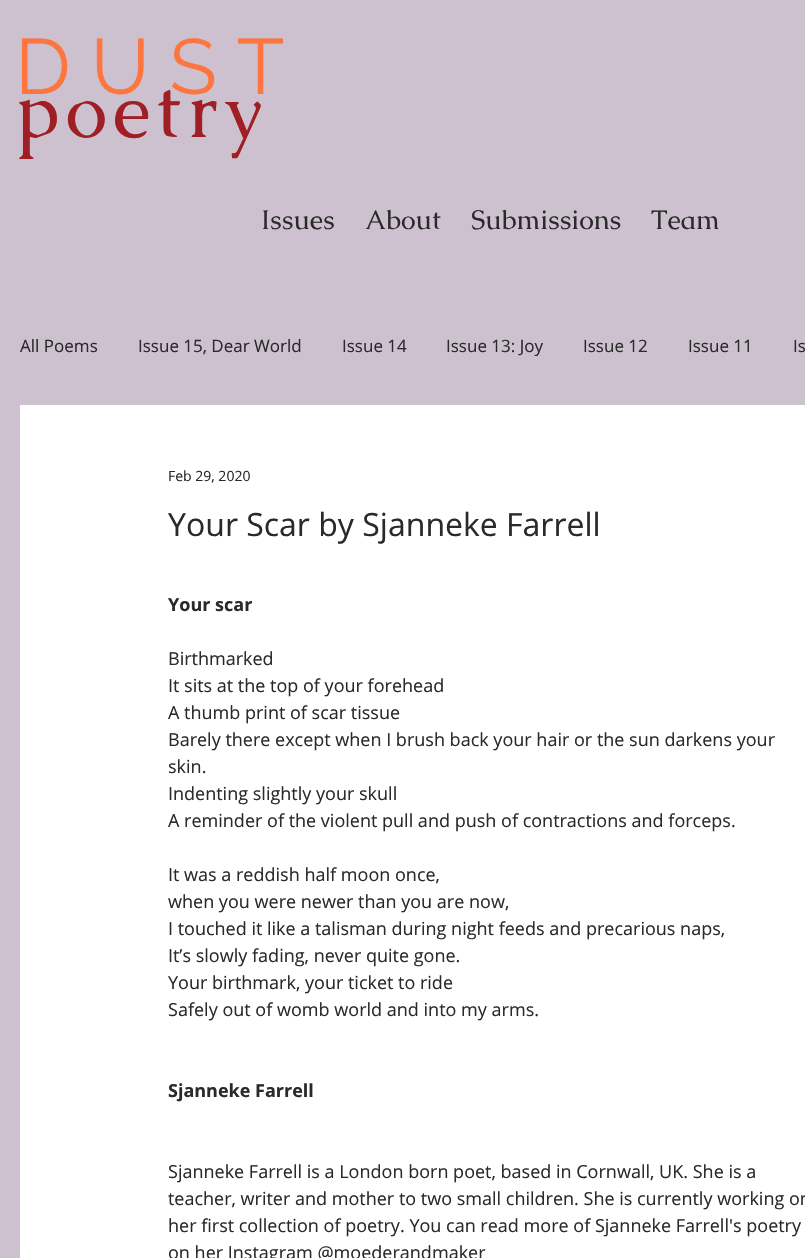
void draw(SkCanvas* canvas) {
	SkPaint fill;
	fill.setAntiAlias(true);
	auto makeFont = [&](const char* family, int weight, float size, bool italic = false) {
		SkFontStyle style(weight, SkFontStyle::kNormal_Width,
			italic ? SkFontStyle::kItalic_Slant : SkFontStyle::kUpright_Slant);
		SkFont result(fontMgr->matchFamilyStyle(family, style), size);
		result.setSubpixel(true);
		return result;
	};
	auto text = [&](const char* s, float x, float y, const SkFont& font) {
		canvas->drawString(s, x, y, font, fill);
	};
	auto spacedText = [&](const char* s, float x, float y, const SkFont& font, const SkPaint& ink, float letter, float word) {
		std::vector<SkGlyphID> glyphs(font.countText(s, strlen(s), SkTextEncoding::kUTF8));
		std::vector<float> xs(glyphs.size());
		font.textToGlyphs(s, strlen(s), SkTextEncoding::kUTF8, glyphs);
		font.getXPos(glyphs, xs, x);
		float extra = 0;
		for (size_t i = 0; i < glyphs.size(); i++) {
			xs[i] += extra;
			extra += letter + word * (glyphs[i] == font.unicharToGlyph(' '));
		}
		canvas->drawTextBlob(SkTextBlob::MakeFromPosHGlyphs(glyphs, xs, y, font), 0, 0, ink);
	};
	auto box = [&](float l, float t, float r, float b) {
		canvas->drawRect(SkRect::MakeLTRB(l, t, r, b), fill);
	};
	canvas->clear(0xFFCDC0CF);
	fill.setColor(0xFFFFFFFF);
	box(20, 405, 805, 1258);
	auto font1 = makeFont("Raleway", 400, 78);
	fill.setColor(0xFFFD763F);
	text("D U S T", 15, 94, font1);
	auto font2 = makeFont("Caudex", 400, 77);
	fill.setColor(0xFFA01F24);
	spacedText("poetry", 15, 137, font2, fill, 5.5f, 0);
	auto font3 = makeFont("Caudex", 400, 27);
	fill.setColor(0xFF2A2A2A);
	text("Issues", 261, 229, font3);
	text("About", 365, 229, font3);
	text("Submissions", 471, 229, font3);
	text("Team", 651, 229, font3);
	auto font4 = makeFont("Open Sans", 400, 17);
	text("All Poems", 20, 352, font4);
	text("Issue 15, Dear World", 138, 352, font4);
	text("Issue 14", 342, 352, font4);
	text("Issue 13: Joy", 446, 352, font4);
	text("Issue 12", 583, 352, font4);
	text("Issue 11", 688, 352, font4);
	text("Is", 793, 352, font4);
	auto font5 = makeFont("Open Sans", 400, 14);
	text("Feb 29, 2020", 168, 481, font5);
	auto font6 = makeFont("Open Sans", 400, 32);
	text("Your Scar by Sjanneke Farrell", 168, 536, font6);
	auto font7 = makeFont("Open Sans", 700, 18);
	text("Your scar", 168, 611, font7);
	auto font8 = makeFont("Open Sans", 400, 18);
	text("Birthmarked", 168, 665, font8);
	text("It sits at the top of your forehead", 168, 692, font8);
	text("A thumb print of scar tissue", 168, 719, font8);
	text("Barely there except when I brush back your hair or the sun darkens your", 168, 746, font8);
	text("skin.", 168, 773, font8);
	text("Indenting slightly your skull", 168, 800, font8);
	text("A reminder of the violent pull and push of contractions and forceps.", 168, 827, font8);
	text("It was a reddish half moon once,", 168, 881, font8);
	text("when you were newer than you are now,", 168, 908, font8);
	text("I touched it like a talisman during night feeds and precarious naps,", 168, 935, font8);
	text("It’s slowly fading, never quite gone.", 168, 962, font8);
	text("Your birthmark, your ticket to ride", 168, 989, font8);
	text("Safely out of womb world and into my arms.", 168, 1016, font8);
	text("Sjanneke Farrell", 168, 1097, font7);
	text("Sjanneke Farrell is a London born poet, based in Cornwall, UK. She is a", 168, 1178, font8);
	text("teacher, writer and mother to two small children. She is currently working on", 168, 1205, font8);
	text("her first collection of poetry. You can read more of Sjanneke Farrell's poetry", 168, 1232, font8);
	text("on her Instagram @moederandmaker", 168, 1259, font8);
}
